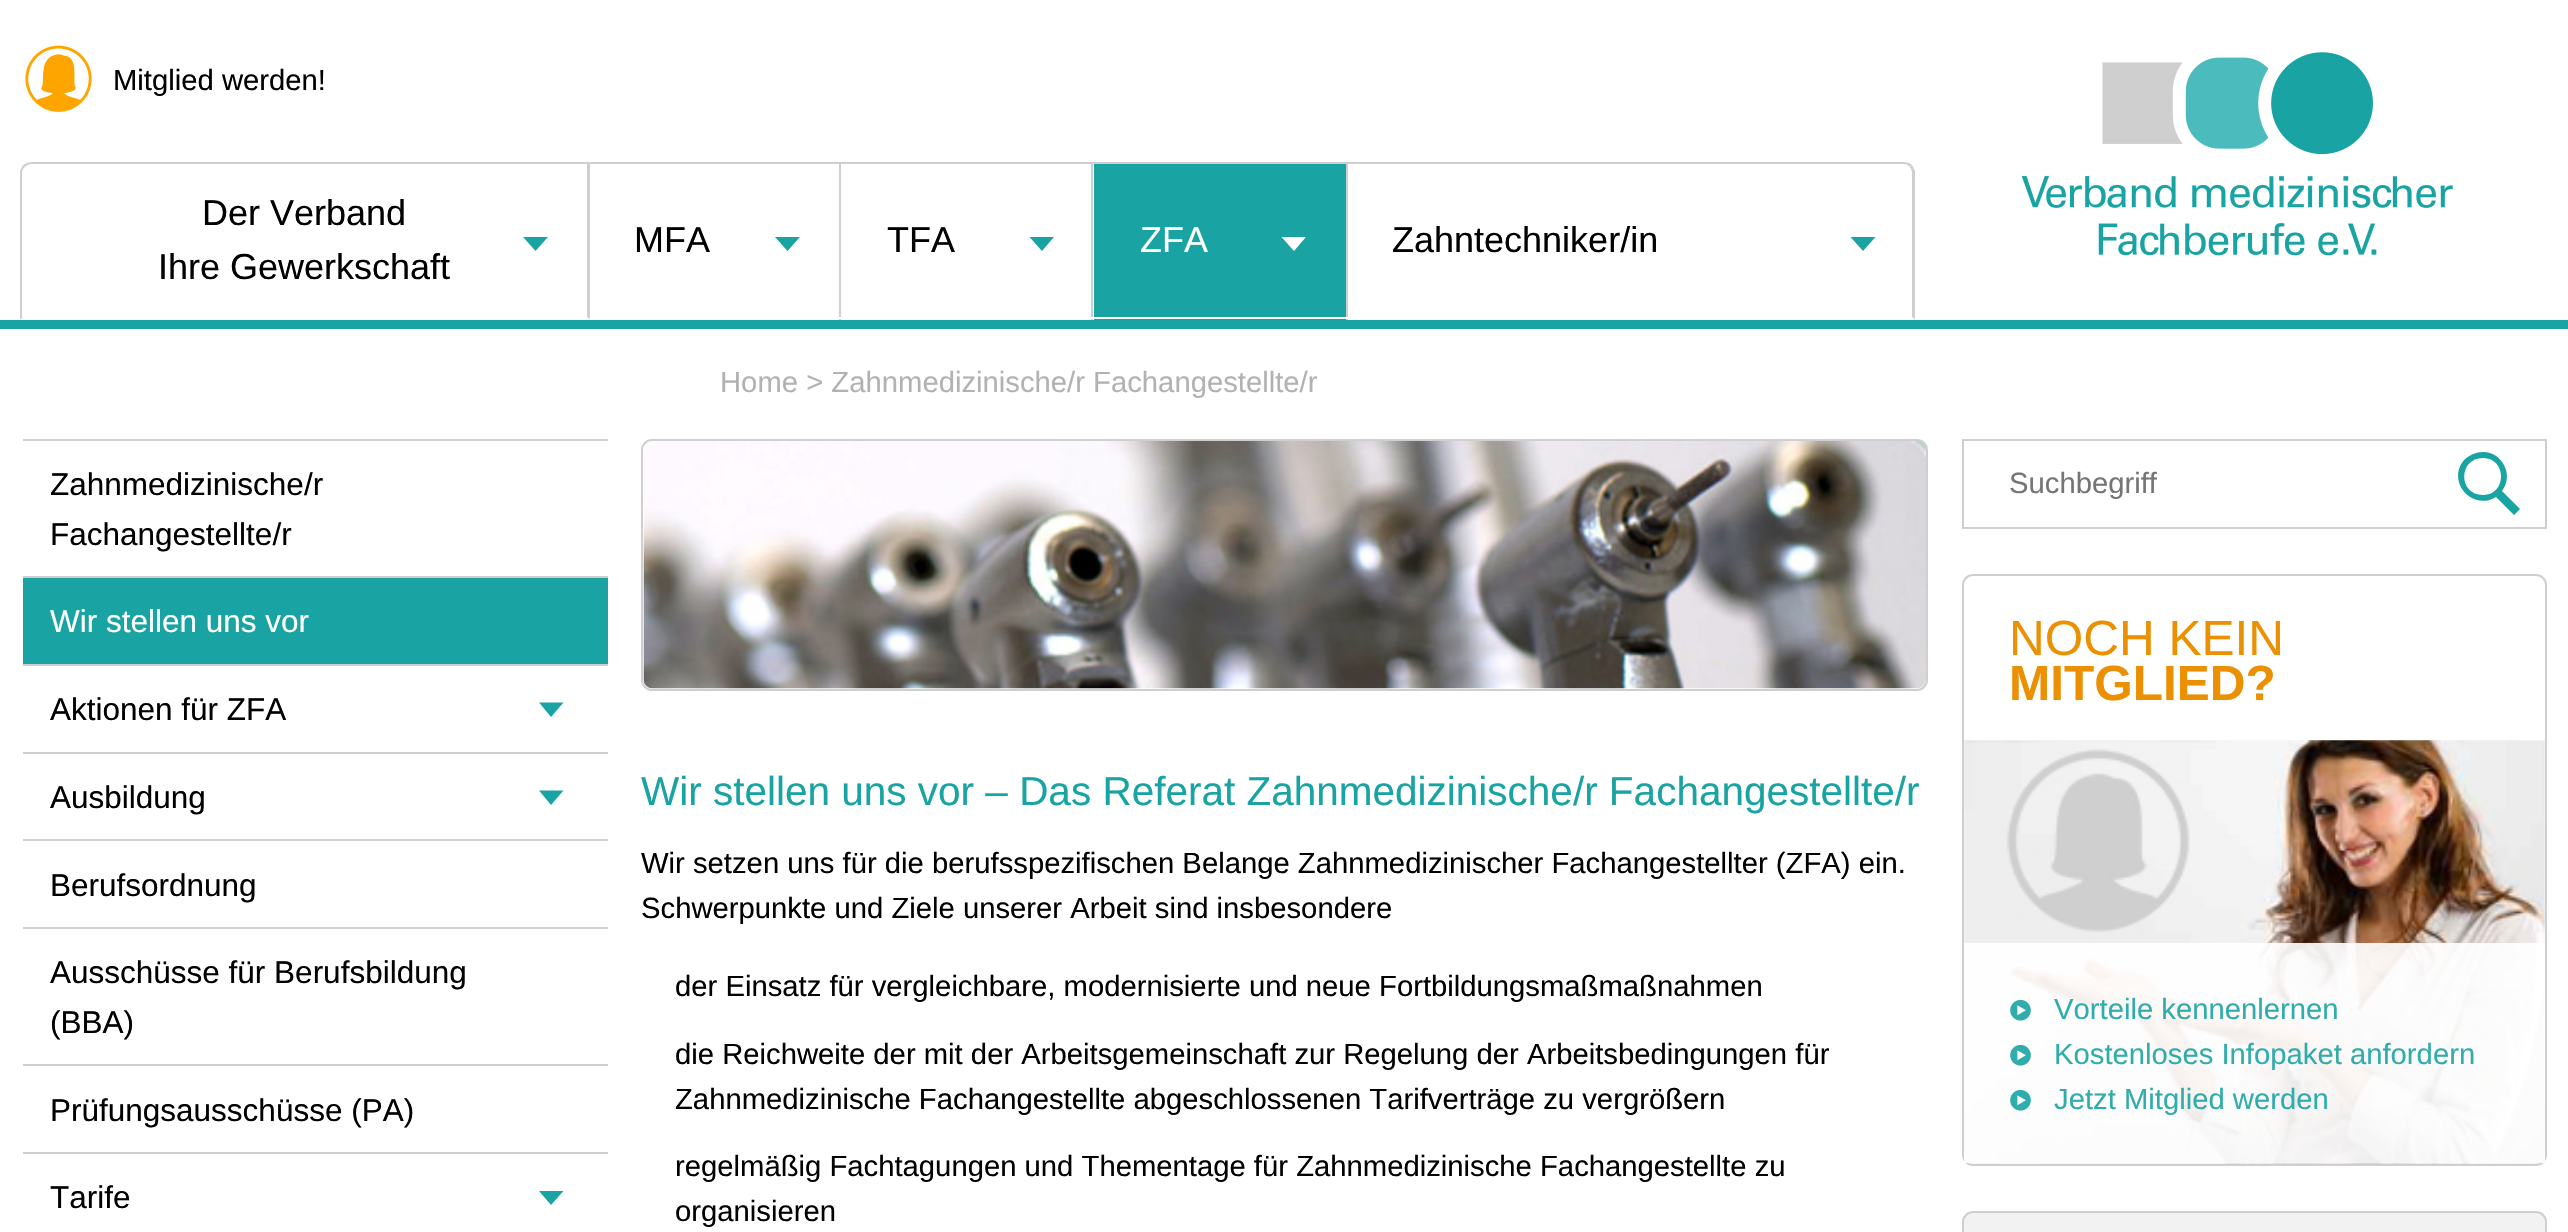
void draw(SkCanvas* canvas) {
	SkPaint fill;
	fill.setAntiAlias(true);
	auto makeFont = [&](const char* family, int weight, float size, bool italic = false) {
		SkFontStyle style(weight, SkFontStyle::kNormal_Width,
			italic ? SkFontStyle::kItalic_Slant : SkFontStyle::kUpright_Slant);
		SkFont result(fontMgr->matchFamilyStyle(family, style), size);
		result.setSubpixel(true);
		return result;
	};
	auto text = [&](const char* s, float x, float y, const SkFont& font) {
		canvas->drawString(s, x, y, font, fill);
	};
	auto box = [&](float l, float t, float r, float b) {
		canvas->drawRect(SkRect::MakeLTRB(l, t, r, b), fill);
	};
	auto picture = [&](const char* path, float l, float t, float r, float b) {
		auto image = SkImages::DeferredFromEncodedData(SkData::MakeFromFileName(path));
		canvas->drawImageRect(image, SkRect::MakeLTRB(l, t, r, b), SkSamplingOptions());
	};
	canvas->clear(0xFFFFFFFF);
	fill.setColor(0xFF19A3A3);
	box(0, 320, 2568, 329);
	picture("image0.png", 25, 45, 92, 112);
	picture("image1.png", 2021, 52, 2453, 256);
	canvas->drawPath(SkPathBuilder().moveTo(523, 237).lineTo(535.5f, 251).lineTo(548, 237).close().detach(), fill);
	fill.setColor(0xFFCFCFCF);
	canvas->drawPath(SkPathBuilder().moveTo(32, 162).cubicTo(29, 162, 26, 163, 23, 165).lineTo(25, 167).cubicTo(27, 165, 29, 164, 32, 164).lineTo(587, 164).lineTo(590, 162).close().detach(), fill);
	canvas->drawPath(SkPathBuilder().moveTo(590, 162).lineTo(587, 164).lineTo(587, 317).lineTo(590, 320).close().detach(), fill);
	fill.setColor(0xFFFFFFFF);
	canvas->drawPath(SkPathBuilder().moveTo(590, 320).lineTo(587, 317).lineTo(23, 317).lineTo(20, 320).close().detach(), fill);
	fill.setColor(0xFFCFCFCF);
	canvas->drawPath(SkPathBuilder().moveTo(20, 320).lineTo(20, 171).cubicTo(21, 169, 22, 167, 23, 165).lineTo(25, 167).cubicTo(23, 168, 22, 171, 22, 173).lineTo(22, 317).lineTo(23, 317).close().detach(), fill);
	fill.setColor(0xFF19A3A3);
	canvas->drawPath(SkPathBuilder().moveTo(775, 237).lineTo(787.5f, 251).lineTo(800, 237).close().detach(), fill);
	fill.setColor(0xFFCFCFCF);
	box(590, 162, 1348, 164);
	box(839, 162, 841, 320);
	fill.setColor(0xFFFFFFFF);
	box(839, 317, 842, 319);
	fill.setColor(0xFF19A3A3);
	canvas->drawPath(SkPathBuilder().moveTo(1029.5f, 237).lineTo(1042, 251).lineTo(1054, 237).close().detach(), fill);
	fill.setColor(0xFFCFCFCF);
	box(1091, 162, 1093, 320);
	fill.setColor(0xFFFFFFFF);
	box(1091, 317, 1094, 319);
	fill.setColor(0xFF19A3A3);
	box(1094, 164, 1346, 320);
	fill.setColor(0xFFFFFFFF);
	canvas->drawPath(SkPathBuilder().moveTo(1281.5f, 237).lineTo(1294, 251).lineTo(1306, 237).close().detach(), fill);
	fill.setColor(0xFFCFCFCF);
	box(1346, 162, 1348, 320);
	fill.setColor(0xFFFFFFFF);
	box(1094, 317, 1348, 319);
	fill.setColor(0xFF19A3A3);
	canvas->drawPath(SkPathBuilder().moveTo(1850.5f, 237).lineTo(1863, 251).lineTo(1875.5f, 237).close().detach(), fill);
	fill.setColor(0xFFCFCFCF);
	canvas->drawPath(SkPathBuilder().moveTo(1348, 162).lineTo(1904, 162).cubicTo(1907, 162, 1910, 163, 1912, 165).lineTo(1910, 167).cubicTo(1908, 165, 1906, 164, 1904, 164).lineTo(1348, 164).close().detach(), fill);
	canvas->drawPath(SkPathBuilder().moveTo(1912, 317).lineTo(1912, 173).cubicTo(1912, 171, 1911, 169, 1910, 167).lineTo(1912, 165).cubicTo(1913, 167, 1914, 169, 1915, 171).lineTo(1915, 320).close().detach(), fill);
	fill.setColor(0xFFFFFFFF);
	canvas->drawPath(SkPathBuilder().moveTo(1915, 320).lineTo(1912, 317).lineTo(1348, 317).lineTo(1348, 320).close().detach(), fill);
	fill.setColor(0xFFCFCFCF);
	box(23, 439, 608, 441);
	box(23, 576, 608, 578);
	fill.setColor(0xFF19A3A3);
	box(23, 578, 608, 664);
	fill.setColor(0xFFCFCFCF);
	box(23, 664, 608, 666);
	box(23, 752, 608, 754);
	fill.setColor(0xFF19A3A3);
	canvas->drawPath(SkPathBuilder().moveTo(539, 702.5f).lineTo(551, 717).lineTo(563.5f, 702.5f).close().detach(), fill);
	fill.setColor(0xFFCFCFCF);
	box(23, 839, 608, 841);
	fill.setColor(0xFF19A3A3);
	canvas->drawPath(SkPathBuilder().moveTo(539, 790.5f).lineTo(551, 805).lineTo(563.5f, 790.5f).close().detach(), fill);
	fill.setColor(0xFFCFCFCF);
	box(23, 927, 608, 929);
	box(23, 1064, 608, 1066);
	box(23, 1152, 608, 1154);
	fill.setColor(0xFF19A3A3);
	canvas->drawPath(SkPathBuilder().moveTo(539, 1191).lineTo(551, 1205).lineTo(563.5f, 1191).close().detach(), fill);
	fill.setStyle(SkPaint::kStroke_Style);
	fill.setStrokeWidth(2);
	fill.setColor(0xFFCFCFCF);
	canvas->drawRoundRect(SkRect::MakeLTRB(642, 440, 1927, 690), 10, 10, fill);
	picture("image2.png", 643, 441, 1926, 689);
	canvas->drawRect(SkRect::MakeLTRB(1963, 440, 2546, 528), fill);
	fill.setStyle(SkPaint::kFill_Style);
	fill.setColor(0xFF19A3A3);
	canvas->drawPath(SkPathBuilder().moveTo(2483, 452).cubicTo(2476, 452, 2470, 455, 2465, 459).cubicTo(2445, 480, 2472, 512, 2496, 497).lineTo(2514, 515).lineTo(2520, 509).lineTo(2502, 491).cubicTo(2514, 476, 2503, 452, 2483, 452).close().moveTo(2483, 458).cubicTo(2507, 458, 2507, 495, 2483, 495).cubicTo(2458, 495, 2458, 458, 2483, 458).close().detach(), fill);
	fill.setStyle(SkPaint::kStroke_Style);
	fill.setColor(0xFFCFCFCF);
	canvas->drawRoundRect(SkRect::MakeLTRB(1963, 575, 2546, 1165), 10, 10, fill);
	picture("image3.png", 1964, 740, 2545, 1164);
	fill.setStyle(SkPaint::kFill_Style);
	fill.setColor(0xE6FFFFFF);
	box(1964, 943, 2545, 1163);
	picture("image4.png", 2010, 999, 2031, 1021);
	picture("image5.png", 2010, 1044, 2031, 1066);
	picture("image6.png", 2010, 1089, 2031, 1111);
	fill.setColor(0xFFF2F2F2);
	canvas->drawRoundRect(SkRect::MakeLTRB(1963, 1212, 2546, 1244), 10, 10, fill);
	fill.setStyle(SkPaint::kStroke_Style);
	fill.setColor(0xFFCFCFCF);
	canvas->drawRoundRect(SkRect::MakeLTRB(1963, 1212, 2546, 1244), 10, 10, fill);
	auto font1 = makeFont("Liberation Sans", 400, 29.25f);
	fill.setStyle(SkPaint::kFill_Style);
	fill.setColor(0xFF000000);
	text("Mitglied werden!", 113, 90, font1);
	auto font2 = makeFont("Liberation Sans", 400, 36);
	text("Der Verband", 202, 225, font2);
	text("Ihre Gewerkschaft", 158, 279, font2);
	text("MFA", 634, 252, font2);
	text("TFA", 887, 252, font2);
	fill.setColor(0xFFFFFFFF);
	text("ZFA", 1140, 252, font2);
	fill.setColor(0xFF000000);
	text("Zahntechniker/in", 1392, 252, font2);
	fill.setColor(0xFFB2B2B2);
	text("Home > Zahnmedizinische/r Fachangestellte/r", 720, 392, font1);
	auto font3 = makeFont("Liberation Sans", 400, 31.5f);
	fill.setColor(0xFF000000);
	text("Zahnmedizinische/r", 50, 495, font3);
	text("Fachangestellte/r", 50, 545, font3);
	fill.setColor(0xFFFFFFFF);
	text("Wir stellen uns vor", 50, 632, font3);
	fill.setColor(0xFF000000);
	text("Aktionen für ZFA", 50, 720, font3);
	text("Ausbildung", 50, 808, font3);
	text("Berufsordnung", 50, 896, font3);
	text("Ausschüsse für Berufsbildung", 50, 983, font3);
	text("(BBA)", 50, 1033, font3);
	text("Prüfungsausschüsse (PA)", 50, 1121, font3);
	text("Tarife", 50, 1208, font3);
	auto font4 = makeFont("Liberation Sans", 400, 40.5f);
	fill.setColor(0xFF19A3A3);
	text("Wir stellen uns vor – Das Referat Zahnmedizinische/r Fachangestellte/r", 641, 805, font4);
	fill.setColor(0xFF000000);
	text("Wir setzen uns für die berufsspezifischen Belange Zahnmedizinischer Fachangestellter (ZFA) ein.", 641, 873, font1);
	text("Schwerpunkte und Ziele unserer Arbeit sind insbesondere", 641, 918, font1);
	text("der Einsatz für vergleichbare, modernisierte und neue Fortbildungsmaßmaßnahmen", 675, 996, font1);
	text("die Reichweite der mit der Arbeitsgemeinschaft zur Regelung der Arbeitsbedingungen für", 675, 1064, font1);
	text("Zahnmedizinische Fachangestellte abgeschlossenen Tarifverträge zu vergrößern", 675, 1109, font1);
	text("regelmäßig Fachtagungen und Thementage für Zahnmedizinische Fachangestellte zu", 675, 1176, font1);
	text("organisieren", 675, 1221, font1);
	fill.setColor(0xFF757575);
	text("Suchbegriff", 2009, 493, font1);
	auto font5 = makeFont("Liberation Sans", 400, 49.5f);
	fill.setColor(0xFFEB9001);
	text("NOCH KEIN", 2009, 655, font5);
	auto font6 = makeFont("Liberation Sans", 700, 49.5f);
	text("MITGLIED?", 2009, 700, font6);
	fill.setColor(0xFF30ACAC);
	text("Vorteile kennenlernen", 2054, 1019, font1);
	text("Kostenloses Infopaket anfordern", 2054, 1064, font1);
	text("Jetzt Mitglied werden", 2054, 1109, font1);
}
